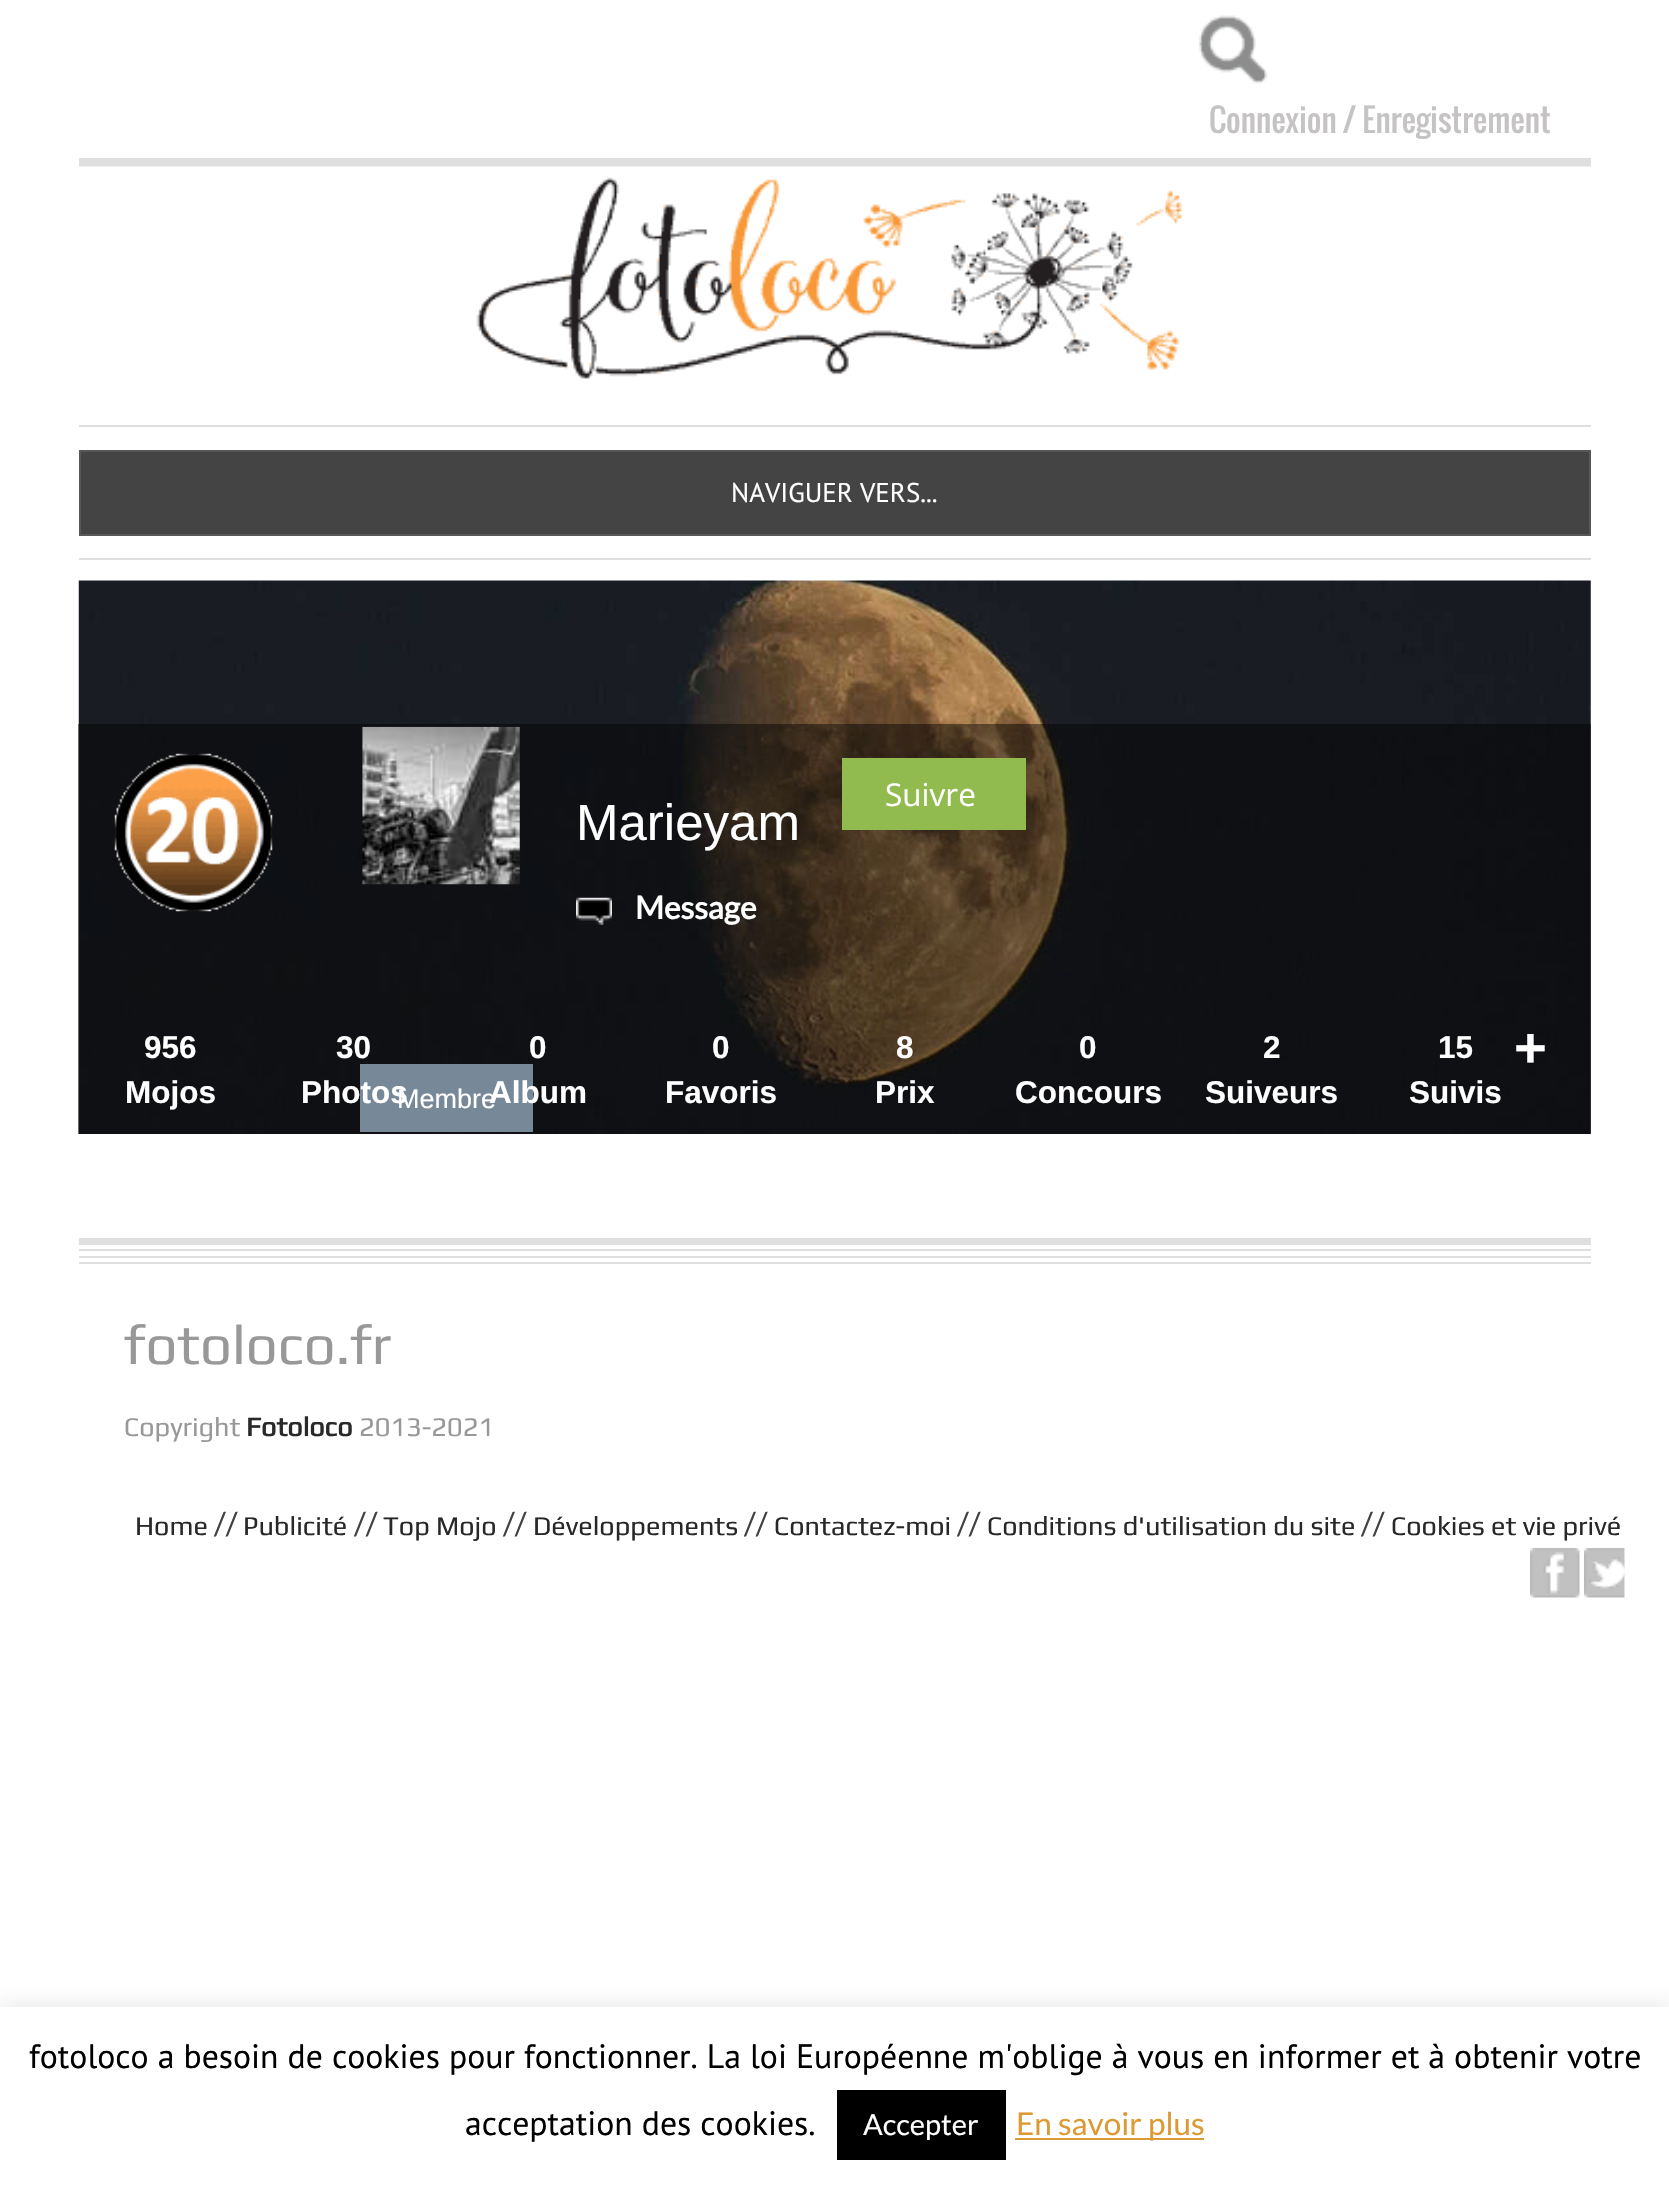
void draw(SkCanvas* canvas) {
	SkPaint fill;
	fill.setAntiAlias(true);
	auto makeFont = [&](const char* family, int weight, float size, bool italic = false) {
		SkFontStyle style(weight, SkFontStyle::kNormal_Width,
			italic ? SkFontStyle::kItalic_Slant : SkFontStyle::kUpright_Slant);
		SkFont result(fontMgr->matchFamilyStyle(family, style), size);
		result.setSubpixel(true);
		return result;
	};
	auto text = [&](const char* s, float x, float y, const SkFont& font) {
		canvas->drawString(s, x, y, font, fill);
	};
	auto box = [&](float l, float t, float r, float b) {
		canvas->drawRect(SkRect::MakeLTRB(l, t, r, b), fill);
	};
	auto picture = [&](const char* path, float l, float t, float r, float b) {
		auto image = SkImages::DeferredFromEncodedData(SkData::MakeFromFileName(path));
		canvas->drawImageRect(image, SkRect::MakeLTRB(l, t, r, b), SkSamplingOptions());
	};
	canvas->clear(0xFFFFFFFF);
	picture("image0.png", 1198, 15, 1268, 84);
	fill.setColor(0xFFE0DFDF);
	box(79, 158, 1591, 167);
	picture("image1.png", 79, 166, 1591, 167);
	picture("image2.png", 476, 177, 1182, 379);
	box(79, 425, 1591, 427);
	fill.setColor(0xFF444444);
	canvas->drawRect(SkRect::MakeLTRB(80, 451, 1590, 535), fill);
	fill.setStyle(SkPaint::kStroke_Style);
	fill.setStrokeWidth(2);
	fill.setColor(0xFF585757);
	canvas->drawRect(SkRect::MakeLTRB(80, 451, 1590, 535), fill);
	fill.setStyle(SkPaint::kFill_Style);
	fill.setColor(0xFFE0DFDF);
	box(79, 558, 1591, 560);
	picture("image3.png", 78, 580, 1591, 1134);
	fill.setColor(0x73000000);
	box(78, 724, 1591, 1134);
	fill.setColor(0xFF91BB4E);
	box(842, 758, 1026, 830);
	picture("image4.png", 576, 897, 612, 925);
	picture("image5.png", 114, 753, 273, 912);
	picture("image6.png", 362, 726, 520, 885);
	fill.setColor(0xFF778899);
	box(360, 1064, 533, 1132);
	fill.setColor(0xFFE0DFDF);
	box(79, 1238, 1591, 1245);
	box(79, 1249, 1591, 1251);
	box(79, 1256, 1591, 1258);
	box(79, 1262, 1591, 1264);
	picture("image7.png", 1530, 1548, 1580, 1598);
	picture("image8.png", 1584, 1548, 1625, 1598);
	canvas->save();
	canvas->clipRect(SkRect::MakeLTRB(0, 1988, 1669, 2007));
	fill.setColor(0x4DACABAB);
	fill.setMaskFilter(SkMaskFilter::MakeBlur(kNormal_SkBlurStyle, 11));
	canvas->drawRect(SkRect::MakeLTRB(0, 2005, 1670, 2185), fill);
	fill.setMaskFilter(nullptr);
	canvas->restore();
	fill.setColor(0xFF000000);
	box(837, 2090, 1006, 2160);
	fill.setColor(0xFFDD9933);
	box(1015, 2138, 1204, 2140);
	auto font1 = makeFont("Oswald", 400, 31.5f);
	fill.setColor(0xFFC5C3C3);
	text("Connexion / Enregistrement", 1209, 133, font1);
	auto font2 = makeFont("PT Sans", 400, 27);
	fill.setColor(0xFFFFFFFF);
	text("NAVIGUER VERS...", 731, 502, font2);
	auto font3 = makeFont("Open Sans", 400, 31.5f);
	text("Suivre", 885, 806, font3);
	auto font4 = makeFont("Liberation Sans", 400, 51);
	text("Marieyam", 576, 840, font4);
	auto font5 = makeFont("Lato", 700, 31.5f);
	text("Message", 635, 919, font5);
	auto font6 = makeFont("Liberation Sans", 400, 27);
	text("Membre", 397, 1108, font6);
	auto font7 = makeFont("Liberation Sans", 700, 31.5f);
	text("956", 144, 1058, font7);
	text("Mojos", 125, 1103, font7);
	text("30", 336, 1058, font7);
	text("Photos", 301, 1103, font7);
	text("0", 529, 1058, font7);
	text("Album", 489, 1103, font7);
	text("0", 712, 1058, font7);
	text("Favoris", 665, 1103, font7);
	text("8", 896, 1058, font7);
	text("Prix", 875, 1103, font7);
	text("0", 1079, 1058, font7);
	text("Concours", 1015, 1103, font7);
	text("2", 1263, 1058, font7);
	text("Suiveurs", 1205, 1103, font7);
	text("15", 1438, 1058, font7);
	text("Suivis", 1409, 1103, font7);
	auto font8 = makeFont("Liberation Sans", 700, 56.25f);
	text("+", 1514, 1067, font8);
	auto font9 = makeFont("Play", 400, 56.25f);
	fill.setColor(0xFF999898);
	text("fotoloco.fr", 124, 1364, font9);
	auto font10 = makeFont("Play", 400, 27);
	text("Copyright", 124, 1436, font10);
	auto font11 = makeFont("Play", 700, 27);
	fill.setColor(0xFF282828);
	text("Fotoloco", 246, 1436, font11);
	fill.setColor(0xFF999898);
	text("2013-2021", 359, 1436, font10);
	fill.setColor(0xFF282828);
	text("Home", 135, 1535, font10);
	auto font12 = makeFont("Lato", 400, 31.5f);
	fill.setColor(0xFF424242);
	text("//", 214, 1535, font12);
	fill.setColor(0xFF282828);
	text("Publicité", 243, 1535, font10);
	fill.setColor(0xFF424242);
	text("//", 354, 1535, font12);
	fill.setColor(0xFF282828);
	text("Top Mojo", 383, 1535, font10);
	fill.setColor(0xFF424242);
	text("//", 503, 1535, font12);
	fill.setColor(0xFF282828);
	text("Développements", 533, 1535, font10);
	fill.setColor(0xFF424242);
	text("//", 744, 1535, font12);
	fill.setColor(0xFF282828);
	text("Contactez-moi", 774, 1535, font10);
	fill.setColor(0xFF424242);
	text("//", 957, 1535, font12);
	fill.setColor(0xFF282828);
	text("Conditions d'utilisation du site", 987, 1535, font10);
	fill.setColor(0xFF424242);
	text("//", 1361, 1535, font12);
	fill.setColor(0xFF282828);
	text("Cookies et vie privé", 1391, 1535, font10);
	auto font13 = makeFont("PT Sans", 400, 33.75f);
	fill.setColor(0xFF000000);
	text("fotoloco a besoin de cookies pour fonctionner. La loi Européenne m'oblige à vous en informer et à obtenir votre", 29, 2068, font13);
	text("acceptation des cookies.", 465, 2135, font13);
	auto font14 = makeFont("Lato", 400, 29);
	fill.setColor(0xFFFFFFFF);
	text("Accepter", 863, 2135, font14);
	fill.setColor(0xFFDD9933);
	text("En savoir plus", 1016, 2135, font12);
}
